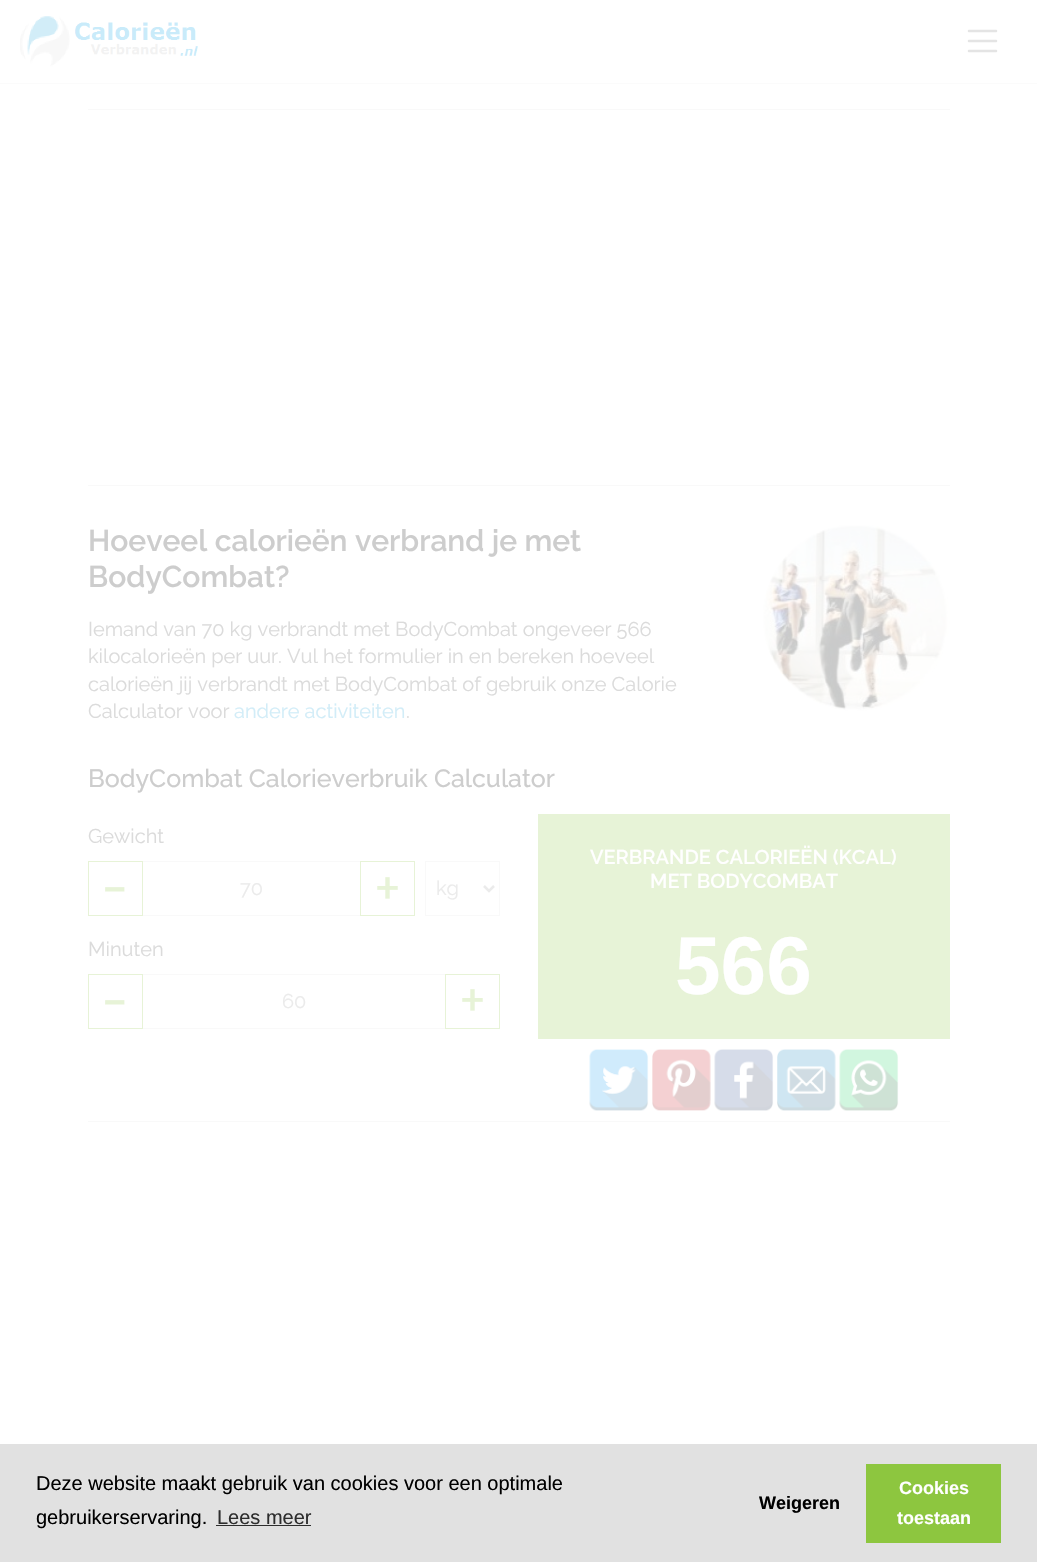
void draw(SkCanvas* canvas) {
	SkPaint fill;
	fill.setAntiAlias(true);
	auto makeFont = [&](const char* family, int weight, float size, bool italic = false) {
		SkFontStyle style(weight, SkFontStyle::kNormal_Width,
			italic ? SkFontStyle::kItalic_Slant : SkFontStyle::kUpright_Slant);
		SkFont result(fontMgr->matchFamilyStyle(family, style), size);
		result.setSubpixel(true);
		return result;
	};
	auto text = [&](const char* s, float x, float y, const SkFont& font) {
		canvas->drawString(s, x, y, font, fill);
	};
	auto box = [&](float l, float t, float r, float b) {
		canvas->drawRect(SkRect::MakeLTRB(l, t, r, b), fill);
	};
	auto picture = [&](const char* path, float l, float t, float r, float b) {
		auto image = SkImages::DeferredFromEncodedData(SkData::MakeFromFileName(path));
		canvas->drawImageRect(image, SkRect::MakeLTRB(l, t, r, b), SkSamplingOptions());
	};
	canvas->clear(0xFFFFFFFF);
	fill.setColor(0xFFFBFBFB);
	box(0, 83, 1037, 84);
	picture("image0.png", 20, 16, 198, 67);
	fill.setStyle(SkPaint::kStroke_Style);
	fill.setStrokeWidth(2.5f);
	fill.setStrokeCap(SkPaint::kRound_Cap);
	fill.setColor(0xFFE4E4E4);
	canvas->drawPath(SkPathBuilder().moveTo(969, 31).lineTo(996, 31).moveTo(969, 41).lineTo(996, 41).moveTo(969, 51).lineTo(996, 51).detach(), fill);
	fill.setStyle(SkPaint::kFill_Style);
	fill.setColor(0xFFF9F9F9);
	box(88, 109, 950, 110);
	box(88, 485, 950, 486);
	picture("image1.png", 763, 525, 950, 711);
	fill.setStyle(SkPaint::kStroke_Style);
	fill.setStrokeWidth(1);
	fill.setStrokeCap(SkPaint::kButt_Cap);
	fill.setColor(0xFFE7F3D7);
	canvas->drawRect(SkRect::MakeLTRB(88.5f, 861.5f, 142.5f, 915.5f), fill);
	fill.setStyle(SkPaint::kFill_Style);
	fill.setColor(0xFFF9F9F9);
	box(143, 861, 360, 862);
	box(143, 915, 360, 916);
	fill.setStyle(SkPaint::kStroke_Style);
	fill.setColor(0xFFE7F3D7);
	canvas->drawRect(SkRect::MakeLTRB(360.5f, 861.5f, 414.5f, 915.5f), fill);
	fill.setColor(0xFFF9F9F9);
	canvas->drawRect(SkRect::MakeLTRB(425.5f, 861.5f, 499.5f, 915.5f), fill);
	fill.setStrokeWidth(2.5f);
	fill.setColor(0xFFEBEBEB);
	canvas->drawPath(SkPathBuilder().moveTo(484, 886).lineTo(489, 891).lineTo(494, 886).detach(), fill);
	fill.setStrokeWidth(1);
	fill.setColor(0xFFE7F3D7);
	canvas->drawRect(SkRect::MakeLTRB(88.5f, 974.5f, 142.5f, 1028.5f), fill);
	fill.setStyle(SkPaint::kFill_Style);
	fill.setColor(0xFFF9F9F9);
	box(143, 974, 445, 975);
	box(143, 1028, 445, 1029);
	fill.setStyle(SkPaint::kStroke_Style);
	fill.setColor(0xFFE7F3D7);
	canvas->drawRect(SkRect::MakeLTRB(445.5f, 974.5f, 499.5f, 1028.5f), fill);
	fill.setStyle(SkPaint::kFill_Style);
	box(538, 814, 950, 1039);
	picture("image2.png", 589, 1049, 649, 1111);
	picture("image3.png", 652, 1049, 711, 1111);
	picture("image4.png", 714, 1049, 774, 1111);
	picture("image5.png", 777, 1049, 836, 1111);
	picture("image6.png", 839, 1049, 899, 1111);
	fill.setColor(0xFFF9F9F9);
	box(88, 1121, 950, 1122);
	fill.setColor(0xFFE1E1E1);
	box(0, 1444, 1037, 1562);
	fill.setColor(0xFF2D2D2D);
	box(216, 1525, 311, 1526);
	fill.setColor(0xFF8DC63F);
	box(866, 1464, 1001, 1543);
	auto font1 = makeFont("Raleway", 600, 30);
	fill.setColor(0xFFCDCDCD);
	text("Hoeveel calorieën verbrand je met", 88, 551, font1);
	text("BodyCombat?", 88, 587, font1);
	auto font2 = makeFont("Raleway", 400, 20);
	fill.setColor(0xFFDBDBDB);
	text("Iemand van 70 kg verbrandt met BodyCombat ongeveer 566", 88, 636, font2);
	text("kilocalorieën per uur. Vul het formulier in en bereken hoeveel", 88, 663, font2);
	text("calorieën jij verbrandt met BodyCombat of gebruik onze Calorie", 88, 691, font2);
	text("Calculator voor", 88, 718, font2);
	fill.setColor(0xFFD2EDF8);
	text("andere activiteiten", 234, 718, font2);
	fill.setColor(0xFFDBDBDB);
	text(".", 406, 718, font2);
	auto font3 = makeFont("Raleway", 500, 25);
	fill.setColor(0xFFCDCDCD);
	text("BodyCombat Calorieverbruik Calculator", 88, 787, font3);
	fill.setColor(0xFFDBDBDB);
	text("Gewicht", 88, 843, font2);
	auto font4 = makeFont("Raleway", 400, 65);
	fill.setColor(0xFFE7F3D7);
	text("-", 101, 907, font4);
	fill.setColor(0xFFEBEBEB);
	text("70", 240, 895, font2);
	fill.setColor(0xFFE7F3D7);
	text("+", 374, 911, font4);
	fill.setColor(0xFFEBEBEB);
	text("kg", 436, 895, font2);
	fill.setColor(0xFFDBDBDB);
	text("Minuten", 88, 956, font2);
	fill.setColor(0xFFE7F3D7);
	text("-", 101, 1020, font4);
	fill.setColor(0xFFEBEBEB);
	text("60", 282, 1008, font2);
	fill.setColor(0xFFE7F3D7);
	text("+", 459, 1023, font4);
	auto font5 = makeFont("Raleway", 600, 20);
	fill.setColor(0xFFFFFFFF);
	text("VERBRANDE CALORIEËN (KCAL)", 590, 864, font5);
	text("MET BODYCOMBAT", 650, 888, font5);
	auto font6 = makeFont("Liberation Sans", 700, 82);
	text("566", 675, 994, font6);
	auto font7 = makeFont("Liberation Sans", 400, 20);
	fill.setColor(0xFF000000);
	text("Deze website maakt gebruik van cookies voor een optimale", 36, 1490, font7);
	text("gebruikerservaring.", 36, 1524, font7);
	fill.setColor(0xFF2D2D2D);
	text("Lees meer", 217, 1524, font7);
	auto font8 = makeFont("Liberation Sans", 700, 18);
	fill.setColor(0xFF000000);
	text("Weigeren", 759, 1509, font8);
	fill.setColor(0xFFFFFFFF);
	text("Cookies", 899, 1494, font8);
	text("toestaan", 897, 1524, font8);
}
